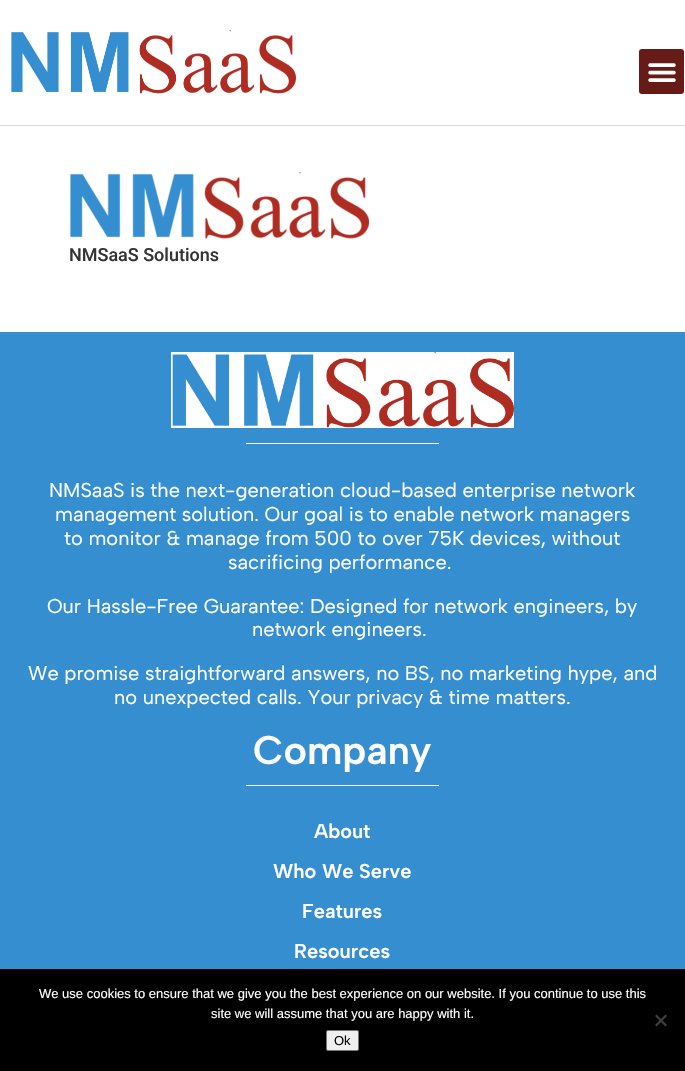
void draw(SkCanvas* canvas) {
	SkPaint fill;
	fill.setAntiAlias(true);
	auto makeFont = [&](const char* family, int weight, float size, bool italic = false) {
		SkFontStyle style(weight, SkFontStyle::kNormal_Width,
			italic ? SkFontStyle::kItalic_Slant : SkFontStyle::kUpright_Slant);
		SkFont result(fontMgr->matchFamilyStyle(family, style), size);
		result.setSubpixel(true);
		return result;
	};
	auto text = [&](const char* s, float x, float y, const SkFont& font) {
		canvas->drawString(s, x, y, font, fill);
	};
	auto box = [&](float l, float t, float r, float b) {
		canvas->drawRect(SkRect::MakeLTRB(l, t, r, b), fill);
	};
	auto roundBox = [&](float l, float t, float r, float b, float radius) {
		canvas->drawRoundRect(SkRect::MakeLTRB(l, t, r, b), radius, radius, fill);
	};
	auto picture = [&](const char* path, float l, float t, float r, float b) {
		auto image = SkImages::DeferredFromEncodedData(SkData::MakeFromFileName(path));
		canvas->drawImageRect(image, SkRect::MakeLTRB(l, t, r, b), SkSamplingOptions());
	};
	canvas->clear(0xFFFFFFFF);
	fill.setColor(0xFFD8D8D8);
	box(0, 125, 685, 126);
	picture("image0.png", 11, 30, 296, 94);
	fill.setColor(0xFF661B16);
	roundBox(639, 49, 684, 94, 3);
	picture("image1.png", 648, 63, 676, 82);
	picture("image2.png", 69, 172, 369, 239);
	fill.setColor(0xFF348ED0);
	box(0, 332, 685, 969);
	picture("image3.png", 171, 352, 514, 428);
	fill.setColor(0xFFFFFFFF);
	box(246, 443, 439, 444);
	box(246, 785, 439, 786);
	fill.setColor(0xFF000000);
	box(0, 969, 685, 1071);
	fill.setColor(0xFF404040);
	canvas->drawPath(SkPathBuilder().moveTo(665.5f, 1014.5f).lineTo(667, 1016).lineTo(656.5f, 1026.5f).lineTo(655, 1025).close().detach(), fill);
	canvas->drawPath(SkPathBuilder().moveTo(655, 1016).lineTo(656.5f, 1014.5f).lineTo(667, 1025).lineTo(665.5f, 1026.5f).close().detach(), fill);
	fill.setColor(0xFFEFEFEF);
	canvas->drawRoundRect(SkRect::MakeLTRB(326.5f, 1030.5f, 358.5f, 1050.5f), 1.5f, 1.5f, fill);
	fill.setStyle(SkPaint::kStroke_Style);
	fill.setStrokeWidth(1);
	fill.setColor(0xFF767676);
	canvas->drawRoundRect(SkRect::MakeLTRB(326.5f, 1030.5f, 358.5f, 1050.5f), 1.5f, 1.5f, fill);
	auto font1 = makeFont("Roboto", 500, 18);
	fill.setStyle(SkPaint::kFill_Style);
	fill.setColor(0xFF333333);
	text("NMSaaS Solutions", 69, 261, font1);
	auto font2 = makeFont("Albert Sans", 400, 20);
	fill.setColor(0xFFFFFFFF);
	text("NMSaaS is the next-generation cloud-based enterprise network", 49, 497, font2);
	text("management solution. Our goal is to enable network managers", 55, 521, font2);
	text("to monitor & manage from 500 to over 75K devices, without", 64, 545, font2);
	text("sacrificing performance.", 228, 569, font2);
	text("Our Hassle-Free Guarantee: Designed for network engineers, by", 47, 613, font2);
	text("network engineers.", 252, 636, font2);
	text("We promise straightforward answers, no BS, no marketing hype, and", 28, 680, font2);
	text("no unexpected calls. Your privacy & time matters.", 114, 704, font2);
	auto font3 = makeFont("Albert Sans", 600, 40);
	text("Company", 253, 764, font3);
	auto font4 = makeFont("Albert Sans", 600, 20);
	text("About", 314, 838, font4);
	text("Who We Serve", 273, 878, font4);
	text("Features", 302, 918, font4);
	text("Resources", 294, 958, font4);
	auto font5 = makeFont("Liberation Sans", 400, 13);
	text("We use cookies to ensure that we give you the best experience on our website. If you continue to use this", 39, 998, font5);
	text("site we will assume that you are happy with it.", 211, 1018, font5);
	fill.setColor(0xFF000000);
	text("Ok", 334, 1045, font5);
}
